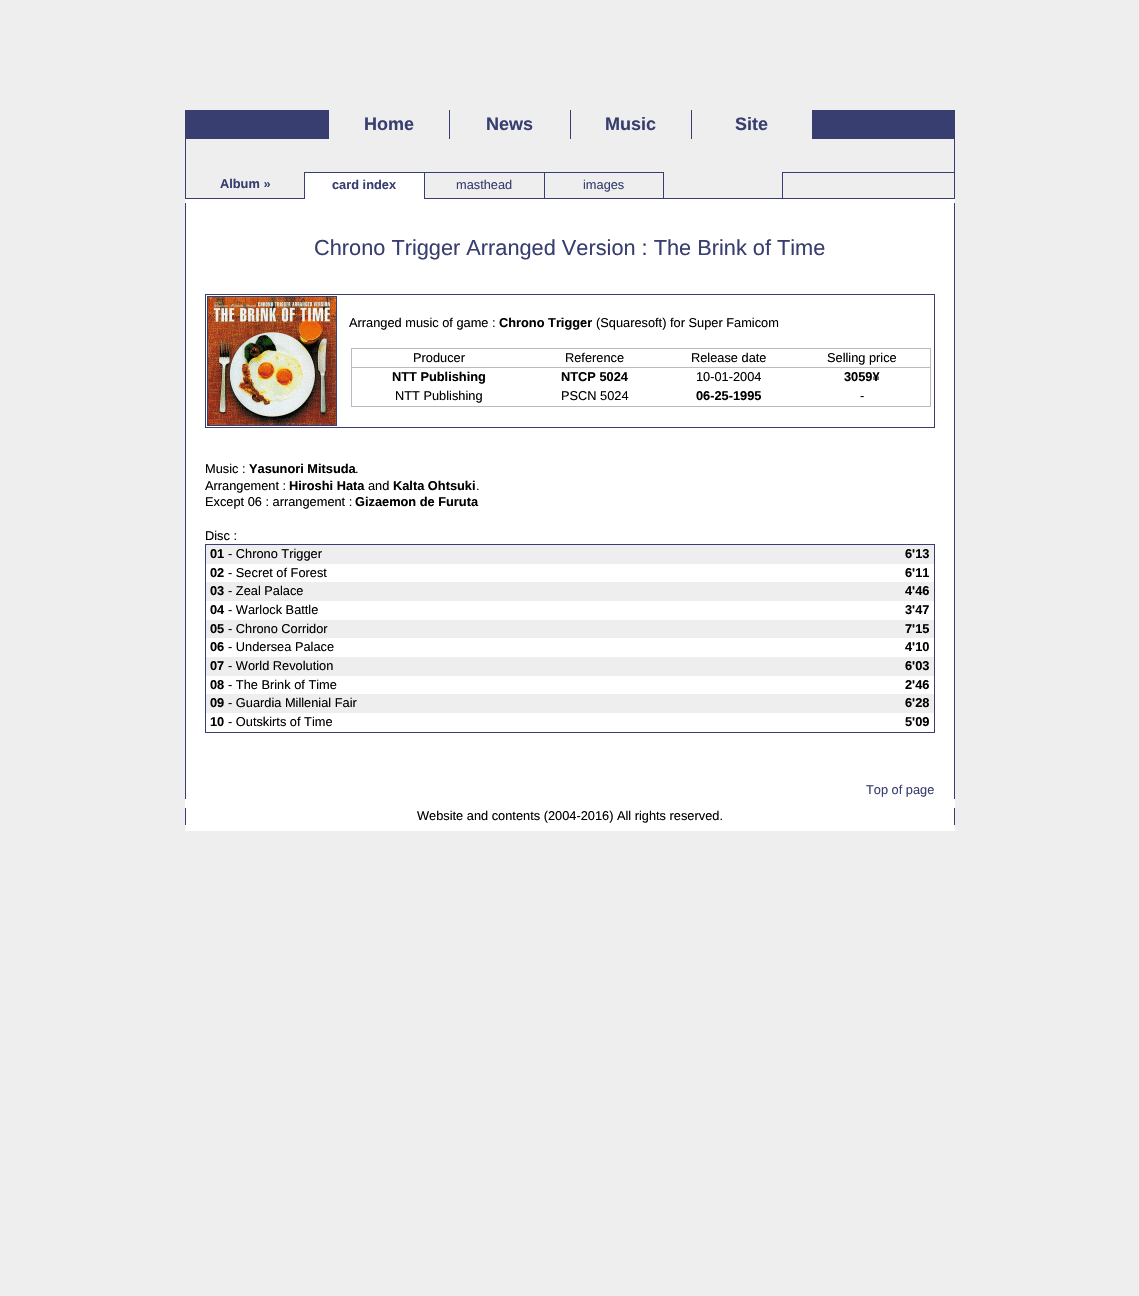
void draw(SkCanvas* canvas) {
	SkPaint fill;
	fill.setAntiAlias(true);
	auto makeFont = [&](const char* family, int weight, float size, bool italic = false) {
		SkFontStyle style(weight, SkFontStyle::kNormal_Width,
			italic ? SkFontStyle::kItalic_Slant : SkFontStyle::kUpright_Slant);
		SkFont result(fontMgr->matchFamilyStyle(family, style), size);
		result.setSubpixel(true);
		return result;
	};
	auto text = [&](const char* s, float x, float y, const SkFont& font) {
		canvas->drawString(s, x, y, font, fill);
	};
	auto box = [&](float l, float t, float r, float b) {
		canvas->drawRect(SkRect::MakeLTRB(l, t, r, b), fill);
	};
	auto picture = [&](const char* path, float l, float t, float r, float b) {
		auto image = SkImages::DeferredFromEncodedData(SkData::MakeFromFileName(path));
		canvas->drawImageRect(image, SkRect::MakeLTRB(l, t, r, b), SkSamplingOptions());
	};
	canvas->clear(0xFFEEEEEE);
	fill.setColor(0xFF383E70);
	box(185, 110, 955, 139);
	fill.setColor(0xFFEEEEEE);
	box(329, 110, 449, 139);
	box(450, 110, 570, 139);
	box(571, 110, 691, 139);
	box(692, 110, 812, 139);
	fill.setColor(0xFFFFFFFF);
	box(305, 173, 424, 199);
	fill.setColor(0xFF383E70);
	box(954, 139, 955, 199);
	box(185, 139, 186, 199);
	box(304, 172, 664, 173);
	box(304, 172, 305, 199);
	box(185, 198, 305, 199);
	box(782, 198, 955, 199);
	box(782, 172, 955, 173);
	box(782, 172, 783, 199);
	box(663, 198, 783, 199);
	box(663, 172, 664, 199);
	box(544, 198, 664, 199);
	box(544, 172, 545, 199);
	box(424, 198, 545, 199);
	box(424, 172, 425, 199);
	fill.setColor(0xFFFFFFFF);
	box(185, 199, 955, 203);
	box(186, 203, 954, 799);
	fill.setColor(0xFF383E70);
	box(954, 203, 955, 799);
	box(185, 203, 186, 799);
	box(205, 294, 935, 295);
	box(934, 294, 935, 428);
	box(205, 427, 935, 428);
	box(205, 294, 206, 428);
	fill.setStyle(SkPaint::kStroke_Style);
	fill.setStrokeWidth(1);
	canvas->drawRect(SkRect::MakeLTRB(207.5f, 296.5f, 336.5f, 425.5f), fill);
	picture("image0.png", 208, 297, 336, 425);
	fill.setStyle(SkPaint::kFill_Style);
	fill.setColor(0xFFBBBBBB);
	box(351, 348, 931, 349);
	box(930, 348, 931, 407);
	box(351, 406, 931, 407);
	box(351, 348, 352, 407);
	box(351, 367, 931, 368);
	fill.setColor(0xFF383E70);
	box(205, 544, 935, 545);
	box(934, 544, 935, 733);
	box(205, 732, 935, 733);
	box(205, 544, 206, 733);
	fill.setColor(0xFFEEEEEE);
	box(206, 545, 934, 564);
	box(206, 582, 934, 601);
	box(206, 620, 934, 638);
	box(206, 657, 934, 676);
	box(206, 694, 934, 713);
	fill.setColor(0xFFFFFFFF);
	box(185, 799, 955, 808);
	box(186, 808, 954, 825);
	fill.setColor(0xFF383E70);
	box(954, 808, 955, 825);
	box(185, 808, 186, 825);
	fill.setColor(0xFFFFFFFF);
	box(185, 825, 955, 831);
	auto font1 = makeFont("Liberation Sans", 700, 18);
	fill.setColor(0xFF383E70);
	text("Home", 364, 130, font1);
	text("News", 486, 130, font1);
	text("Music", 605, 130, font1);
	text("Site", 735, 130, font1);
	auto font2 = makeFont("Liberation Sans", 700, 12.8f);
	text("Album »", 220, 188, font2);
	text("card index", 332, 189, font2);
	auto font3 = makeFont("Liberation Sans", 400, 12.8f);
	text("masthead", 456, 189, font3);
	text("images", 583, 189, font3);
	auto font4 = makeFont("Liberation Sans", 400, 21.75f);
	text("Chrono Trigger Arranged Version : The Brink of Time", 314, 255, font4);
	fill.setColor(0xFF000000);
	text("Arranged music of game :", 349, 327, font3);
	text("Chrono Trigger", 499, 327, font2);
	text("(Squaresoft) for Super Famicom", 596, 327, font3);
	text("Producer", 413, 362, font3);
	text("Reference", 565, 362, font3);
	text("Release date", 691, 362, font3);
	text("Selling price", 827, 362, font3);
	text("NTT Publishing", 392, 381, font2);
	text("NTCP 5024", 561, 381, font2);
	text("10-01-2004", 696, 381, font3);
	text("3059¥", 844, 381, font2);
	text("NTT Publishing", 395, 400, font3);
	text("PSCN 5024", 561, 400, font3);
	text("06-25-1995", 696, 400, font2);
	text("-", 860, 400, font3);
	text("Music :", 205, 473, font3);
	text("Yasunori Mitsuda", 249, 473, font2);
	text(".", 355, 473, font3);
	text("Arrangement :", 205, 490, font3);
	text("Hiroshi Hata", 289, 490, font2);
	text("and", 368, 490, font3);
	text("Kalta Ohtsuki", 393, 490, font2);
	text(".", 476, 490, font3);
	text("Except 06 : arrangement :", 205, 506, font3);
	text("Gizaemon de Furuta", 355, 506, font2);
	text("Disc :", 205, 540, font3);
	text("01", 210, 558, font2);
	text("- Chrono Trigger", 228, 558, font3);
	text("6'13", 905, 558, font2);
	text("02", 210, 577, font2);
	text("- Secret of Forest", 228, 577, font3);
	text("6'11", 905, 577, font2);
	text("03", 210, 595, font2);
	text("- Zeal Palace", 228, 595, font3);
	text("4'46", 905, 595, font2);
	text("04", 210, 614, font2);
	text("- Warlock Battle", 228, 614, font3);
	text("3'47", 905, 614, font2);
	text("05", 210, 633, font2);
	text("- Chrono Corridor", 228, 633, font3);
	text("7'15", 905, 633, font2);
	text("06", 210, 651, font2);
	text("- Undersea Palace", 228, 651, font3);
	text("4'10", 905, 651, font2);
	text("07", 210, 670, font2);
	text("- World Revolution", 228, 670, font3);
	text("6'03", 905, 670, font2);
	text("08", 210, 689, font2);
	text("- The Brink of Time", 228, 689, font3);
	text("2'46", 905, 689, font2);
	text("09", 210, 707, font2);
	text("- Guardia Millenial Fair", 228, 707, font3);
	text("6'28", 905, 707, font2);
	text("10", 210, 726, font2);
	text("- Outskirts of Time", 228, 726, font3);
	text("5'09", 905, 726, font2);
	fill.setColor(0xFF383E70);
	text("Top of page", 866, 794, font3);
	fill.setColor(0xFF000000);
	text("Website and contents (2004-2016) All rights reserved.", 417, 820, font3);
}
